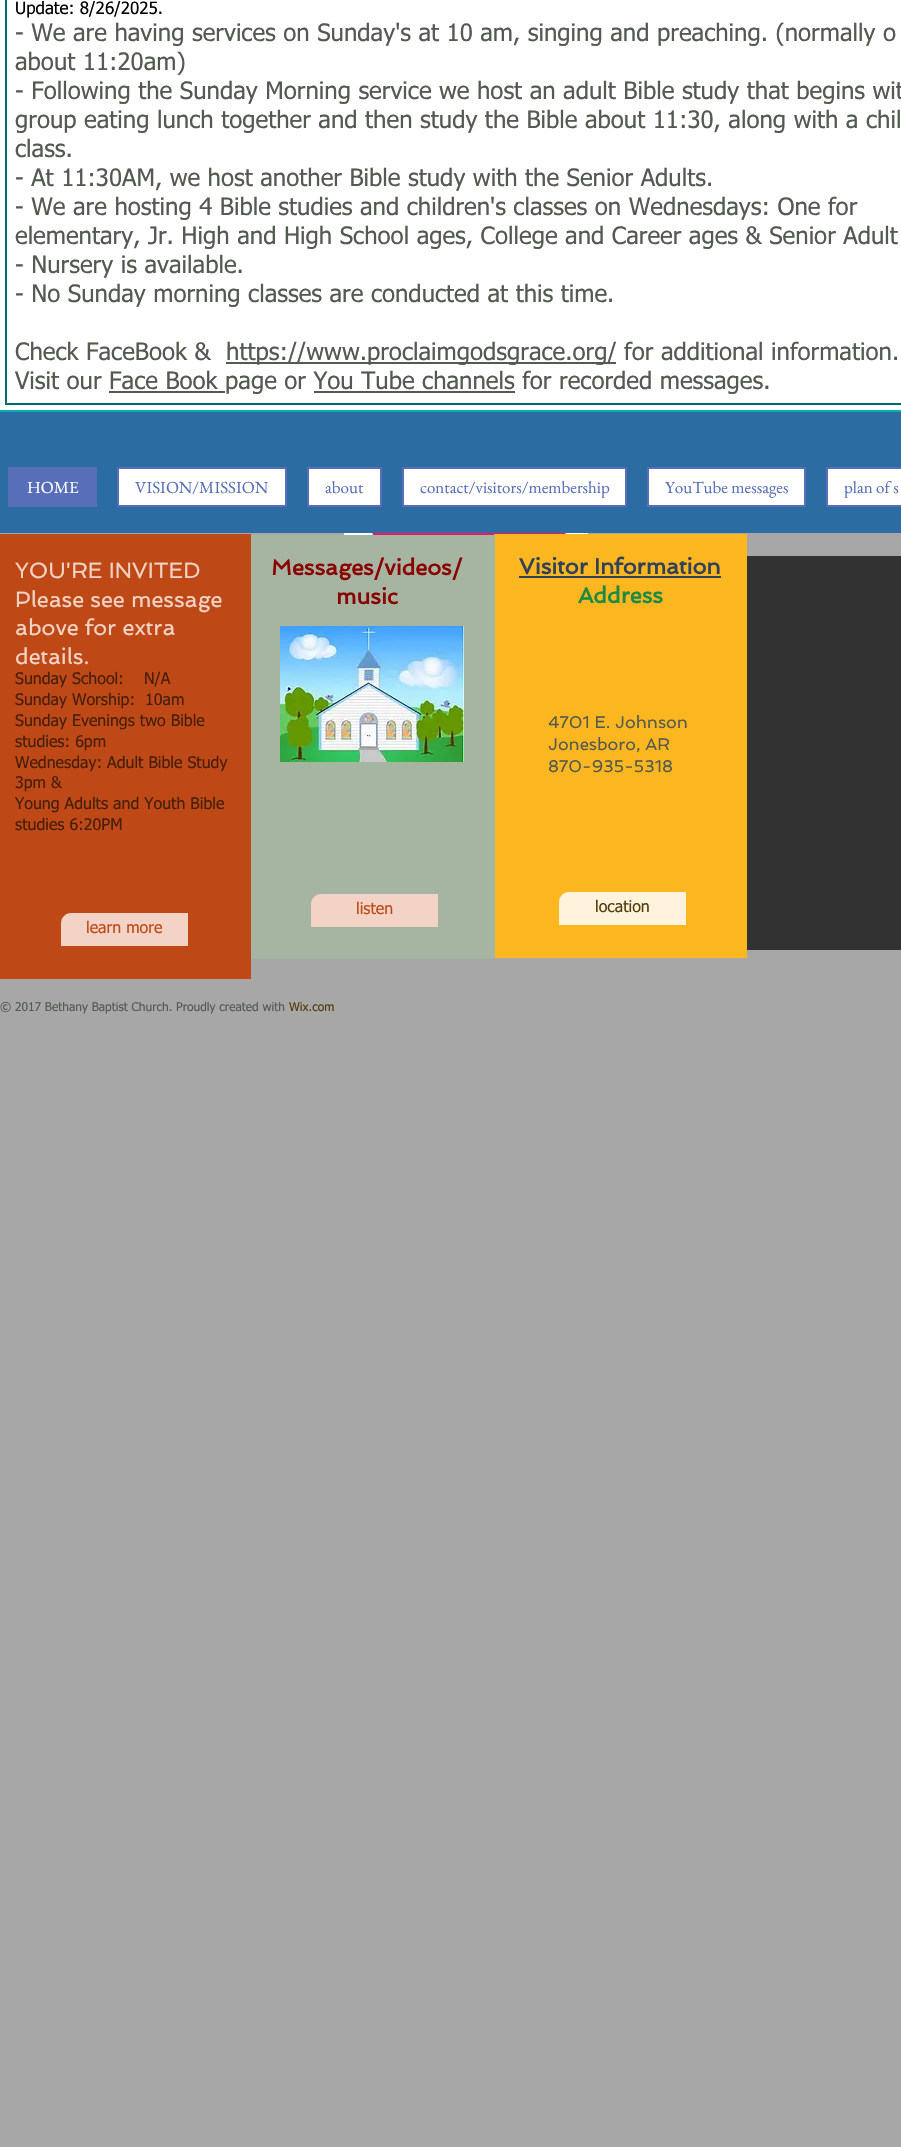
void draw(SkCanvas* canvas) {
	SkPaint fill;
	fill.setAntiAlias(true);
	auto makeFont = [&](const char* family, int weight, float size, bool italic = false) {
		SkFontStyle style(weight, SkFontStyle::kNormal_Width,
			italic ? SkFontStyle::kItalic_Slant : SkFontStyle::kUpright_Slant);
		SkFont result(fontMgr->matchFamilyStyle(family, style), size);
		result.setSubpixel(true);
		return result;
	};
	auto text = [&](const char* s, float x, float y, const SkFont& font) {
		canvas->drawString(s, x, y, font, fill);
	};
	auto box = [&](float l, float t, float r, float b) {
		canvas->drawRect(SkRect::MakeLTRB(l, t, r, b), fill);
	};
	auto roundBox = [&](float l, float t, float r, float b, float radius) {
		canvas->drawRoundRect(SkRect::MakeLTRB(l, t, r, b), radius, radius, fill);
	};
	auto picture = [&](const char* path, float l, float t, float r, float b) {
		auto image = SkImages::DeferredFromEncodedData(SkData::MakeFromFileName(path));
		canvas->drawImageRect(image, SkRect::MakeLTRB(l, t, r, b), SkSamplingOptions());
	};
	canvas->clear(0xFFA7A7A7);
	fill.setColor(0xFFFFFFFF);
	canvas->drawRect(SkRect::MakeLTRB(-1, -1, 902, 411), fill);
	fill.setStyle(SkPaint::kStroke_Style);
	fill.setStrokeWidth(2);
	fill.setColor(0xFF01B1AF);
	canvas->drawRect(SkRect::MakeLTRB(-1, -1, 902, 411), fill);
	fill.setColor(0xFF006C6D);
	canvas->drawRect(SkRect::MakeLTRB(6, -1, 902, 404), fill);
	fill.setStyle(SkPaint::kFill_Style);
	fill.setColor(0xFF525A51);
	box(226, 362, 616, 364);
	box(109, 391, 225, 393);
	box(314, 391, 515, 393);
	fill.setColor(0xFFFFFFFF);
	box(344, 533, 588, 535);
	fill.setColor(0xFFED1566);
	roundBox(371, 506, 567, 546, 20);
	fill.setColor(0xFF2B6CA3);
	box(0, 412, 901, 533);
	fill.setColor(0xFF566FB8);
	box(8, 467, 97, 507);
	fill.setColor(0xFFFFFFFF);
	canvas->drawRect(SkRect::MakeLTRB(118, 468, 286, 506), fill);
	fill.setStyle(SkPaint::kStroke_Style);
	fill.setColor(0xFF566FB8);
	canvas->drawRect(SkRect::MakeLTRB(118, 468, 286, 506), fill);
	fill.setStyle(SkPaint::kFill_Style);
	fill.setColor(0xFFFFFFFF);
	canvas->drawRect(SkRect::MakeLTRB(308, 468, 381, 506), fill);
	fill.setStyle(SkPaint::kStroke_Style);
	fill.setColor(0xFF566FB8);
	canvas->drawRect(SkRect::MakeLTRB(308, 468, 381, 506), fill);
	fill.setStyle(SkPaint::kFill_Style);
	fill.setColor(0xFFFFFFFF);
	canvas->drawRect(SkRect::MakeLTRB(403, 468, 626, 506), fill);
	fill.setStyle(SkPaint::kStroke_Style);
	fill.setColor(0xFF566FB8);
	canvas->drawRect(SkRect::MakeLTRB(403, 468, 626, 506), fill);
	fill.setStyle(SkPaint::kFill_Style);
	fill.setColor(0xFFFFFFFF);
	canvas->drawRect(SkRect::MakeLTRB(648, 468, 805, 506), fill);
	fill.setStyle(SkPaint::kStroke_Style);
	fill.setColor(0xFF566FB8);
	canvas->drawRect(SkRect::MakeLTRB(648, 468, 805, 506), fill);
	fill.setStyle(SkPaint::kFill_Style);
	fill.setColor(0xFFFFFFFF);
	canvas->drawRect(SkRect::MakeLTRB(827, 468, 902, 506), fill);
	fill.setStyle(SkPaint::kStroke_Style);
	fill.setColor(0xFF566FB8);
	canvas->drawRect(SkRect::MakeLTRB(827, 468, 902, 506), fill);
	fill.setStyle(SkPaint::kFill_Style);
	fill.setColor(0xFFBF4916);
	box(0, 534, 251, 979);
	fill.setColor(0xFFF3D3C5);
	canvas->drawPath(SkPathBuilder().moveTo(71, 913).lineTo(188, 913).lineTo(188, 946).lineTo(61, 946).lineTo(61, 923).cubicTo(61, 917.5f, 65.5f, 913, 71, 913).close().detach(), fill);
	fill.setColor(0xFFFCB620);
	box(494, 534, 747, 958);
	fill.setColor(0xFFA5B5A2);
	box(251, 535, 495, 959);
	picture("image0.png", 280, 626, 464, 762);
	fill.setColor(0xFFF3D3C5);
	canvas->drawPath(SkPathBuilder().moveTo(321, 894).lineTo(438, 894).lineTo(438, 927).lineTo(311, 927).lineTo(311, 904).cubicTo(311, 898.5f, 315.5f, 894, 321, 894).close().detach(), fill);
	fill.setColor(0xFF324158);
	box(519, 576, 721, 578);
	fill.setColor(0xFFFFF3DE);
	canvas->drawPath(SkPathBuilder().moveTo(569, 892).lineTo(686, 892).lineTo(686, 925).lineTo(559, 925).lineTo(559, 902).cubicTo(559, 896.5f, 563.5f, 892, 569, 892).close().detach(), fill);
	fill.setColor(0xFF323232);
	box(747, 556, 901, 950);
	auto font1 = makeFont("tahoma", 400, 17);
	fill.setColor(0xFF000000);
	text("Update: 8/26/2025.", 15, 14, font1);
	auto font2 = makeFont("tahoma", 400, 24);
	fill.setColor(0xFF525A51);
	text("- We are having services on Sunday's at 10 am, singing and preaching. (normally o", 15, 41, font2);
	text("about 11:20am)", 15, 70, font2);
	text("- Following the Sunday Morning service we host an adult Bible study that begins wit", 15, 99, font2);
	text("group eating lunch together and then study the Bible about 11:30, along with a chil", 15, 128, font2);
	text("class.", 15, 157, font2);
	text("- At 11:30AM, we host another Bible study with the Senior Adults.", 15, 186, font2);
	text("- We are hosting 4 Bible studies and children's classes on Wednesdays: One for", 15, 215, font2);
	text("elementary, Jr. High and High School ages, College and Career ages & Senior Adult", 15, 244, font2);
	text("- Nursery is available.", 15, 273, font2);
	text("- No Sunday morning classes are conducted at this time.", 15, 302, font2);
	text("Check FaceBook &", 15, 360, font2);
	text("https://www.proclaimgodsgrace.org/ for additional information.", 226, 360, font2);
	text("Visit our Face Book page or You Tube channels for recorded messages.", 15, 389, font2);
	auto font3 = makeFont("EB Garamond", 400, 17);
	fill.setColor(0xFFFFFFFF);
	text("HOME", 27, 493, font3);
	fill.setColor(0xFF566FB8);
	text("VISION/MISSION", 135, 493, font3);
	text("about", 325, 493, font3);
	text("contact/visitors/membership", 420, 493, font3);
	text("YouTube messages", 665, 493, font3);
	text("plan of s", 844, 493, font3);
	auto font4 = makeFont("Spinnaker", 400, 22);
	fill.setColor(0xFFF3D3C5);
	text("YOU'RE INVITED", 15, 578, font4);
	text("Please see message", 15, 607, font4);
	text("above for extra", 15, 635, font4);
	text("details.", 15, 664, font4);
	auto font5 = makeFont("tahoma", 400, 16);
	fill.setColor(0xFF461E09);
	text("Sunday School:    N/A", 15, 684, font5);
	text("Sunday Worship:  10am", 15, 705, font5);
	text("Sunday Evenings two Bible", 15, 726, font5);
	text("studies: 6pm", 15, 747, font5);
	text("Wednesday: Adult Bible Study", 15, 768, font5);
	text("3pm &", 15, 788, font5);
	text("Young Adults and Youth Bible", 15, 809, font5);
	text("studies 6:20PM", 15, 830, font5);
	fill.setColor(0xFFBF4916);
	text("learn more", 86, 933, font5);
	auto font6 = makeFont("Spinnaker", 700, 22);
	fill.setColor(0xFF8B0000);
	text("Messages/videos/", 271, 575, font6);
	text("music", 336, 604, font6);
	fill.setColor(0xFFBF4916);
	text("listen", 356, 914, font5);
	fill.setColor(0xFF324158);
	text("Visitor Information", 519, 574, font6);
	fill.setColor(0xFF1C8A43);
	text("Address", 578, 603, font6);
	auto font7 = makeFont("Spinnaker", 400, 17);
	fill.setColor(0xFF525A51);
	text("4701 E. Johnson", 548, 728, font7);
	text("Jonesboro, AR", 548, 750, font7);
	text("870-935-5318", 548, 772, font7);
	fill.setColor(0xFF543C0A);
	text("location", 595, 912, font5);
	auto font8 = makeFont("tahoma", 400, 12);
	fill.setColor(0xFF525A51);
	text("© 2017 Bethany Baptist Church. Proudly created with", 0, 1011, font8);
	fill.setColor(0xFF543C0A);
	text("Wix.com", 289, 1011, font8);
}
